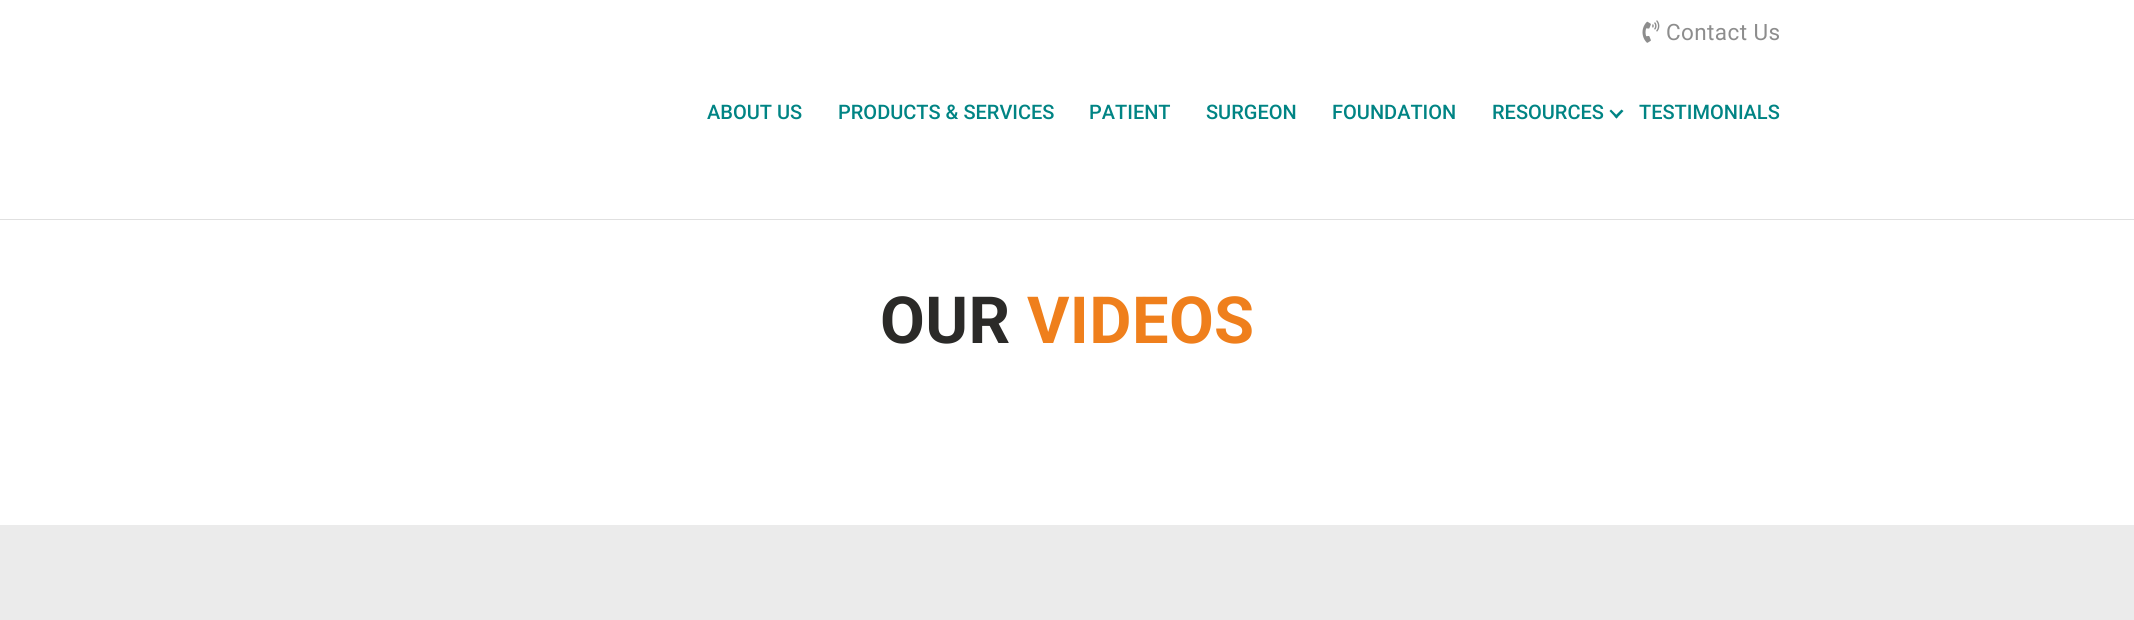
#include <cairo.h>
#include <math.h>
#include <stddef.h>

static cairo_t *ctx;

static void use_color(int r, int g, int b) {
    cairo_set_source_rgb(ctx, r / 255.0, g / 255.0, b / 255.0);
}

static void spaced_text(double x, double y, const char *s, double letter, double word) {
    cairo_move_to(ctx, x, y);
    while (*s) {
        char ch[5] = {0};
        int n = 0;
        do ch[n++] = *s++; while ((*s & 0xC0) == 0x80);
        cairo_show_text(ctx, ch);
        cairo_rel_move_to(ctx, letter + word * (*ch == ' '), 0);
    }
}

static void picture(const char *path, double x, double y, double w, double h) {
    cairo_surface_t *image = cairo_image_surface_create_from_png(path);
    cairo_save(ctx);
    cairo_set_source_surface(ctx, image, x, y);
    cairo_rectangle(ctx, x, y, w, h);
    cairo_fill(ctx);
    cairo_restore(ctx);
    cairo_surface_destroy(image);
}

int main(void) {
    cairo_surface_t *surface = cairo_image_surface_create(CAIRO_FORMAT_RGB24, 2134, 620);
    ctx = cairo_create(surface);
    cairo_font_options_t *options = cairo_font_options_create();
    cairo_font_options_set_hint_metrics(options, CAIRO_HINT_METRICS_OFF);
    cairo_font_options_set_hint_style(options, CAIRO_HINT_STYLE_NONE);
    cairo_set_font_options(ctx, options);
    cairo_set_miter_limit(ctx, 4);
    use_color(255, 255, 255);
    cairo_paint(ctx);
    use_color(224, 224, 224);
    cairo_rectangle(ctx, 0, 219, 2134, 1);
    cairo_fill(ctx);
    picture("img1.png", 1642, 20, 18, 23);
    cairo_select_font_face(ctx, "Roboto", CAIRO_FONT_SLANT_NORMAL, CAIRO_FONT_WEIGHT_NORMAL);
    cairo_set_font_size(ctx, 22.5);
    use_color(141, 141, 141);
    spaced_text(1666, 40, "Contact Us", 0.4, 0);
    cairo_select_font_face(ctx, "Roboto Medium", CAIRO_FONT_SLANT_NORMAL, CAIRO_FONT_WEIGHT_NORMAL);
    cairo_set_font_size(ctx, 20);
    use_color(0, 132, 132);
    cairo_move_to(ctx, 707, 119);
    cairo_show_text(ctx, "ABOUT US");
    cairo_move_to(ctx, 838, 119);
    cairo_show_text(ctx, "PRODUCTS & SERVICES");
    cairo_move_to(ctx, 1089, 119);
    cairo_show_text(ctx, "PATIENT");
    cairo_move_to(ctx, 1206, 119);
    cairo_show_text(ctx, "SURGEON");
    cairo_move_to(ctx, 1332, 119);
    cairo_show_text(ctx, "FOUNDATION");
    cairo_move_to(ctx, 1492, 119);
    cairo_show_text(ctx, "RESOURCES");
    cairo_new_path(ctx);
    cairo_move_to(ctx, 1621.5, 109.5);
    cairo_line_to(ctx, 1623.5, 111);
    cairo_line_to(ctx, 1616.5, 118.5);
    cairo_line_to(ctx, 1614.5, 116.5);
    cairo_close_path(ctx);
    cairo_fill(ctx);
    cairo_new_path(ctx);
    cairo_move_to(ctx, 1611, 109.5);
    cairo_line_to(ctx, 1618, 116.5);
    cairo_line_to(ctx, 1616.5, 118.5);
    cairo_line_to(ctx, 1609.5, 111);
    cairo_close_path(ctx);
    cairo_fill(ctx);
    cairo_move_to(ctx, 1639, 119);
    cairo_show_text(ctx, "TESTIMONIALS");
    cairo_select_font_face(ctx, "Roboto", CAIRO_FONT_SLANT_NORMAL, CAIRO_FONT_WEIGHT_BOLD);
    cairo_set_font_size(ctx, 65);
    use_color(43, 42, 40);
    spaced_text(880, 343, "OUR", 0.4, 0);
    use_color(239, 127, 28);
    spaced_text(1027, 343, "VIDEOS", 0.4, 0);
    use_color(235, 235, 235);
    cairo_rectangle(ctx, 0, 525, 2134, 95);
    cairo_fill(ctx);
    cairo_surface_write_to_png(surface, "result.png");
    cairo_font_options_destroy(options);
    cairo_destroy(ctx);
    cairo_surface_destroy(surface);
    return 0;
}
